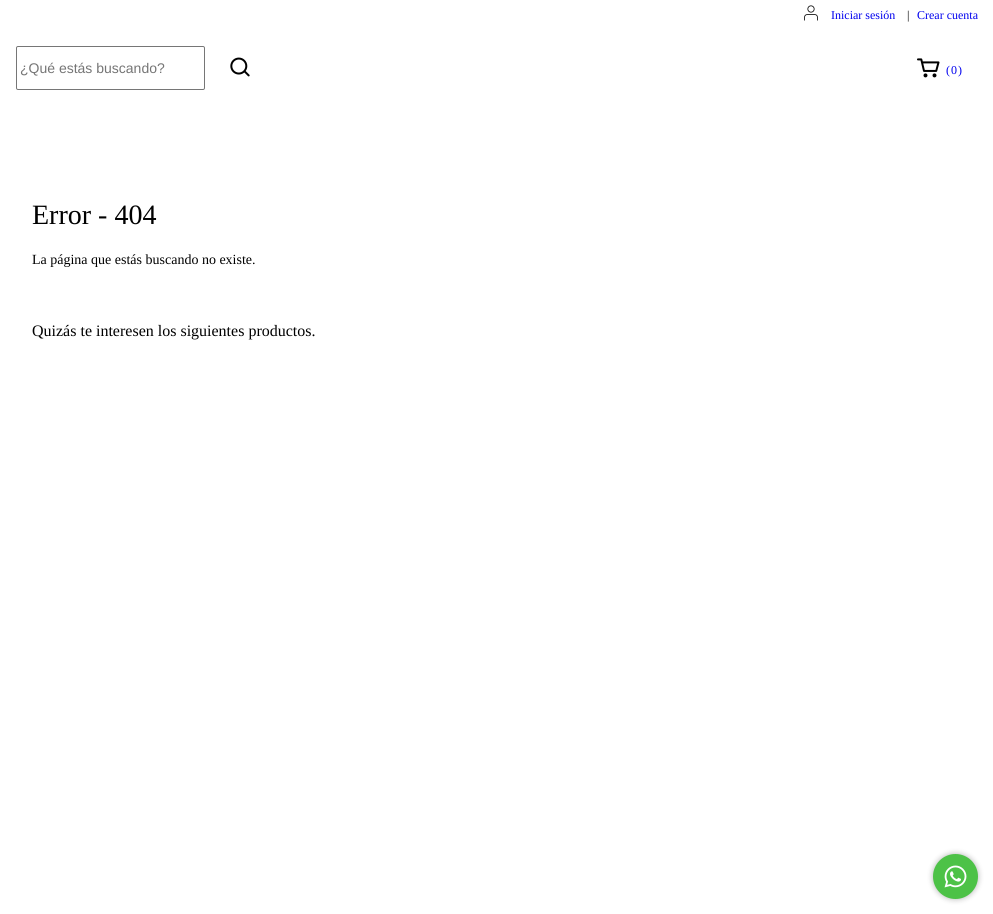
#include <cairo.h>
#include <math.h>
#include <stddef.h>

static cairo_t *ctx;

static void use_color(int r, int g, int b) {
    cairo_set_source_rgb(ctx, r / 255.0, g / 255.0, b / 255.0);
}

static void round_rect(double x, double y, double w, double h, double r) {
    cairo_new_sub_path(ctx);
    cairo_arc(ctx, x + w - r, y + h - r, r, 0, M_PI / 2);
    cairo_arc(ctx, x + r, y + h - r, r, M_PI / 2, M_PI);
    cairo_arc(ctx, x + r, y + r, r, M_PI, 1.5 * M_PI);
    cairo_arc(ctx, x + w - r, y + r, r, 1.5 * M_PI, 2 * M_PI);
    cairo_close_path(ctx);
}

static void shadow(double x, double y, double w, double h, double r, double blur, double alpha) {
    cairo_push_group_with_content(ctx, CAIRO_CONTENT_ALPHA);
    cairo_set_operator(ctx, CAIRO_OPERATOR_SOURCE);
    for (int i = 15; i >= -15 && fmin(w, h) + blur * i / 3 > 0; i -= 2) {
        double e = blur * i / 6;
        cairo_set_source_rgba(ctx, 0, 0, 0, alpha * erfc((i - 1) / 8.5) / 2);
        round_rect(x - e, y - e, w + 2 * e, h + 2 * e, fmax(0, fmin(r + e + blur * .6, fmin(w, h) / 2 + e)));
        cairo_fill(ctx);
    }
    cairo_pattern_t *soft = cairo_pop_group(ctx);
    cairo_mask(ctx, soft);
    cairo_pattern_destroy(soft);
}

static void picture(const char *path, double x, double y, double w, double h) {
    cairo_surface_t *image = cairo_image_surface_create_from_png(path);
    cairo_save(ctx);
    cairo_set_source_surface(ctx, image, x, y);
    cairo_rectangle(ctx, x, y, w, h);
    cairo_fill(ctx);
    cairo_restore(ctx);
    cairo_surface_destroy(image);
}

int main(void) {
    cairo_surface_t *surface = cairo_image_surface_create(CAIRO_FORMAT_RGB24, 993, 914);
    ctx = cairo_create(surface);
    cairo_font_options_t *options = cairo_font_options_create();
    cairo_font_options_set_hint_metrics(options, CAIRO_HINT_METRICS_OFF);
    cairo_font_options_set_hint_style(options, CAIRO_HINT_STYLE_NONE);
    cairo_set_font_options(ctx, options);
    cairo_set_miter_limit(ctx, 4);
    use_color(255, 255, 255);
    cairo_paint(ctx);
    picture("img1.png", 804, 5, 14, 16);
    cairo_select_font_face(ctx, "Liberation Serif", CAIRO_FONT_SLANT_NORMAL, CAIRO_FONT_WEIGHT_NORMAL);
    cairo_set_font_size(ctx, 12);
    use_color(0, 0, 238);
    cairo_move_to(ctx, 831, 19);
    cairo_show_text(ctx, "Iniciar sesión");
    use_color(0, 0, 0);
    cairo_move_to(ctx, 907, 19);
    cairo_show_text(ctx, "|");
    use_color(0, 0, 238);
    cairo_move_to(ctx, 917, 19);
    cairo_show_text(ctx, "Crear cuenta");
    round_rect(16.5, 46.5, 188, 43, 1.5);
    use_color(118, 118, 118);
    cairo_set_line_width(ctx, 1);
    cairo_stroke(ctx);
    cairo_select_font_face(ctx, "Liberation Sans", CAIRO_FONT_SLANT_NORMAL, CAIRO_FONT_WEIGHT_NORMAL);
    cairo_set_font_size(ctx, 14);
    use_color(117, 117, 117);
    cairo_move_to(ctx, 20, 73);
    cairo_show_text(ctx, "¿Qué estás buscando?");
    picture("img2.png", 230, 57, 20, 20);
    picture("img3.png", 917, 58, 23, 20);
    cairo_select_font_face(ctx, "Liberation Serif", CAIRO_FONT_SLANT_NORMAL, CAIRO_FONT_WEIGHT_NORMAL);
    cairo_set_font_size(ctx, 12);
    use_color(0, 0, 238);
    cairo_move_to(ctx, 946, 74);
    cairo_show_text(ctx, "(");
    cairo_move_to(ctx, 951, 74);
    cairo_show_text(ctx, "0");
    cairo_move_to(ctx, 958, 74);
    cairo_show_text(ctx, ")");
    cairo_set_font_size(ctx, 28);
    use_color(0, 0, 0);
    cairo_move_to(ctx, 32, 224);
    cairo_show_text(ctx, "Error - 404");
    cairo_set_font_size(ctx, 14);
    cairo_move_to(ctx, 32, 264);
    cairo_show_text(ctx, "La página que estás buscando no existe.");
    cairo_set_font_size(ctx, 16);
    cairo_move_to(ctx, 32, 336);
    cairo_show_text(ctx, "Quizás te interesen los siguientes productos.");
    use_color(0, 0, 0);
    shadow(933, 854, 45, 45, 22.5, 3, 0.3);
    use_color(77, 194, 71);
    cairo_arc(ctx, 955.5, 876.5, 22.5, 0, 2 * M_PI);
    cairo_fill(ctx);
    picture("img4.png", 944, 865, 23, 23);
    cairo_surface_write_to_png(surface, "result.png");
    cairo_font_options_destroy(options);
    cairo_destroy(ctx);
    cairo_surface_destroy(surface);
    return 0;
}
